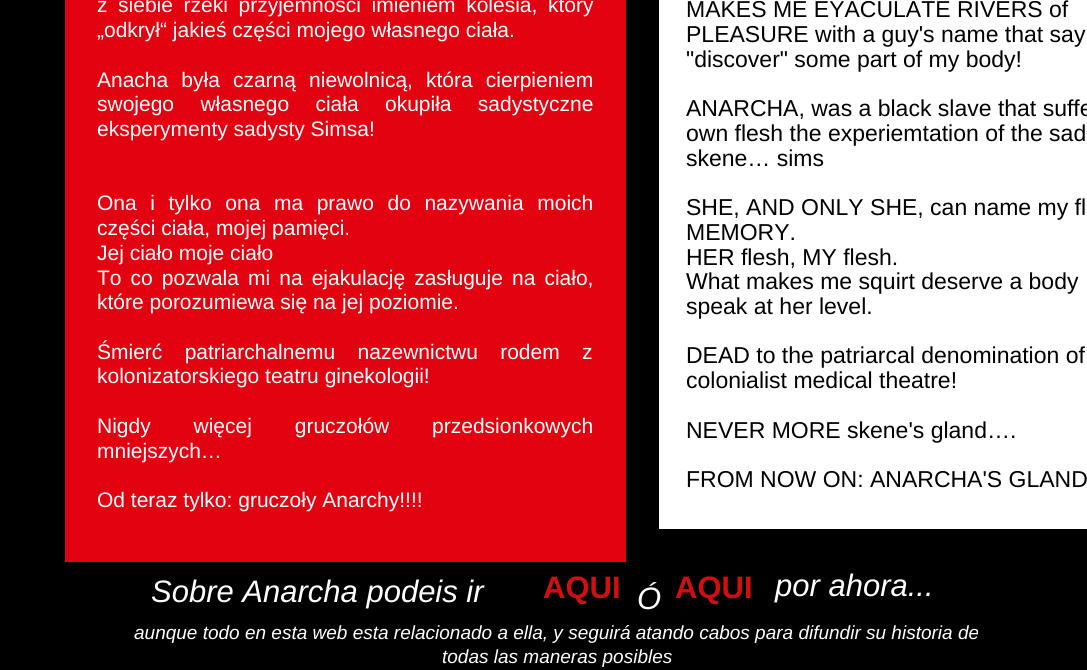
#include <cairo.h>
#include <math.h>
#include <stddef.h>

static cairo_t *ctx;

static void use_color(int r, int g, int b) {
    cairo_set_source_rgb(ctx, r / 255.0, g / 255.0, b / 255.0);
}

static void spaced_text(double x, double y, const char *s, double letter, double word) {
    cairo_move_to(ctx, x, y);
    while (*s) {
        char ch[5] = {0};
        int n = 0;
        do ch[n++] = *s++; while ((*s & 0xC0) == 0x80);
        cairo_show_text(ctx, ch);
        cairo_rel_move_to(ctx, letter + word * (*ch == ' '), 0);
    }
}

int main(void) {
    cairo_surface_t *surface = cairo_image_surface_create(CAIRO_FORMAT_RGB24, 1087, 670);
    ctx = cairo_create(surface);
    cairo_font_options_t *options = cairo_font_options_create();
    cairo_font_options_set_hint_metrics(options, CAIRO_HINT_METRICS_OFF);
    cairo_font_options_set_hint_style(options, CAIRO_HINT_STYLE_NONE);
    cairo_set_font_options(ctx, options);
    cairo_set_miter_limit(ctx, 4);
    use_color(0, 0, 0);
    cairo_paint(ctx);
    use_color(227, 2, 15);
    cairo_rectangle(ctx, 65, 0, 561, 562);
    cairo_fill(ctx);
    cairo_select_font_face(ctx, "Liberation Sans", CAIRO_FONT_SLANT_NORMAL, CAIRO_FONT_WEIGHT_NORMAL);
    cairo_set_font_size(ctx, 21);
    use_color(255, 255, 255);
    spaced_text(97, 12, "z siebie rzeki przyjemności imieniem kolesia, który", 0, 4.75);
    cairo_move_to(ctx, 97, 37);
    cairo_show_text(ctx, "„odkrył“ jakieś części mojego własnego ciała.");
    spaced_text(97, 87, "Anacha była czarną niewolnicą, która cierpieniem", 0, 7.25);
    spaced_text(97, 111, "swojego własnego ciała okupiła sadystyczne", 0, 20.5);
    cairo_move_to(ctx, 97, 136);
    cairo_show_text(ctx, "eksperymenty sadysty Simsa!");
    spaced_text(97, 210, "Ona i tylko ona ma prawo do nazywania moich", 0, 7.75);
    cairo_move_to(ctx, 97, 235);
    cairo_show_text(ctx, "części ciała, mojej pamięci.");
    cairo_move_to(ctx, 97, 260);
    cairo_show_text(ctx, "Jej ciało moje ciało");
    spaced_text(97, 285, "To co pozwala mi na ejakulację zasługuje na ciało,", 0, 3.25);
    cairo_move_to(ctx, 97, 309);
    cairo_show_text(ctx, "które porozumiewa się na jej poziomie.");
    spaced_text(97, 359, "Śmierć patriarchalnemu nazewnictwu rodem z", 0, 16.5);
    cairo_move_to(ctx, 97, 383);
    cairo_show_text(ctx, "kolonizatorskiego teatru ginekologii!");
    spaced_text(97, 433, "Nigdy więcej gruczołów przedsionkowych", 0, 37);
    cairo_move_to(ctx, 97, 458);
    cairo_show_text(ctx, "mniejszych…");
    cairo_move_to(ctx, 97, 507);
    cairo_show_text(ctx, "Od teraz tylko: gruczoły Anarchy!!!!");
    cairo_rectangle(ctx, 659, 0, 428, 529);
    cairo_fill(ctx);
    cairo_set_font_size(ctx, 23);
    use_color(0, 0, 0);
    cairo_move_to(ctx, 686, 17);
    cairo_show_text(ctx, "MAKES ME EYACULATE RIVERS of");
    cairo_move_to(ctx, 686, 42);
    cairo_show_text(ctx, "PLEASURE with a guy's name that say");
    cairo_move_to(ctx, 686, 67);
    cairo_show_text(ctx, "\"discover\" some part of my body!");
    cairo_move_to(ctx, 686, 116);
    cairo_show_text(ctx, "ANARCHA, was a black slave that suffe");
    cairo_move_to(ctx, 686, 141);
    cairo_show_text(ctx, "own flesh the experiemtation of the sad");
    cairo_move_to(ctx, 686, 166);
    cairo_show_text(ctx, "skene… sims");
    cairo_move_to(ctx, 686, 215);
    cairo_show_text(ctx, "SHE, AND ONLY SHE, can name my fl");
    cairo_move_to(ctx, 686, 240);
    cairo_show_text(ctx, "MEMORY.");
    cairo_move_to(ctx, 686, 265);
    cairo_show_text(ctx, "HER flesh, MY flesh.");
    cairo_move_to(ctx, 686, 289);
    cairo_show_text(ctx, "What makes me squirt deserve a body");
    cairo_move_to(ctx, 686, 314);
    cairo_show_text(ctx, "speak at her level.");
    cairo_move_to(ctx, 686, 363);
    cairo_show_text(ctx, "DEAD to the patriarcal denomination of");
    cairo_move_to(ctx, 686, 388);
    cairo_show_text(ctx, "colonialist medical theatre!");
    cairo_move_to(ctx, 686, 438);
    cairo_show_text(ctx, "NEVER MORE skene's gland….");
    cairo_move_to(ctx, 686, 487);
    cairo_show_text(ctx, "FROM NOW ON: ANARCHA'S GLAND");
    cairo_select_font_face(ctx, "Liberation Sans", CAIRO_FONT_SLANT_ITALIC, CAIRO_FONT_WEIGHT_NORMAL);
    cairo_set_font_size(ctx, 31);
    use_color(255, 255, 255);
    cairo_move_to(ctx, 151, 602);
    cairo_show_text(ctx, "Sobre Anarcha podeis ir");
    cairo_select_font_face(ctx, "Liberation Sans", CAIRO_FONT_SLANT_NORMAL, CAIRO_FONT_WEIGHT_BOLD);
    use_color(208, 16, 16);
    cairo_move_to(ctx, 543, 598);
    cairo_show_text(ctx, "AQUI");
    cairo_select_font_face(ctx, "Liberation Sans", CAIRO_FONT_SLANT_ITALIC, CAIRO_FONT_WEIGHT_NORMAL);
    use_color(255, 255, 255);
    cairo_move_to(ctx, 637, 609);
    cairo_show_text(ctx, "Ó");
    cairo_select_font_face(ctx, "Liberation Sans", CAIRO_FONT_SLANT_NORMAL, CAIRO_FONT_WEIGHT_BOLD);
    use_color(208, 16, 16);
    cairo_move_to(ctx, 675, 598);
    cairo_show_text(ctx, "AQUI");
    cairo_select_font_face(ctx, "Liberation Sans", CAIRO_FONT_SLANT_ITALIC, CAIRO_FONT_WEIGHT_NORMAL);
    use_color(255, 255, 255);
    cairo_move_to(ctx, 775, 596);
    cairo_show_text(ctx, "por ahora...");
    cairo_set_font_size(ctx, 19);
    cairo_move_to(ctx, 134, 639);
    cairo_show_text(ctx, "aunque todo en esta web esta relacionado a ella, y seguirá atando cabos para difundir su historia de");
    cairo_move_to(ctx, 442, 663);
    cairo_show_text(ctx, "todas las maneras posibles");
    cairo_surface_write_to_png(surface, "result.png");
    cairo_font_options_destroy(options);
    cairo_destroy(ctx);
    cairo_surface_destroy(surface);
    return 0;
}
